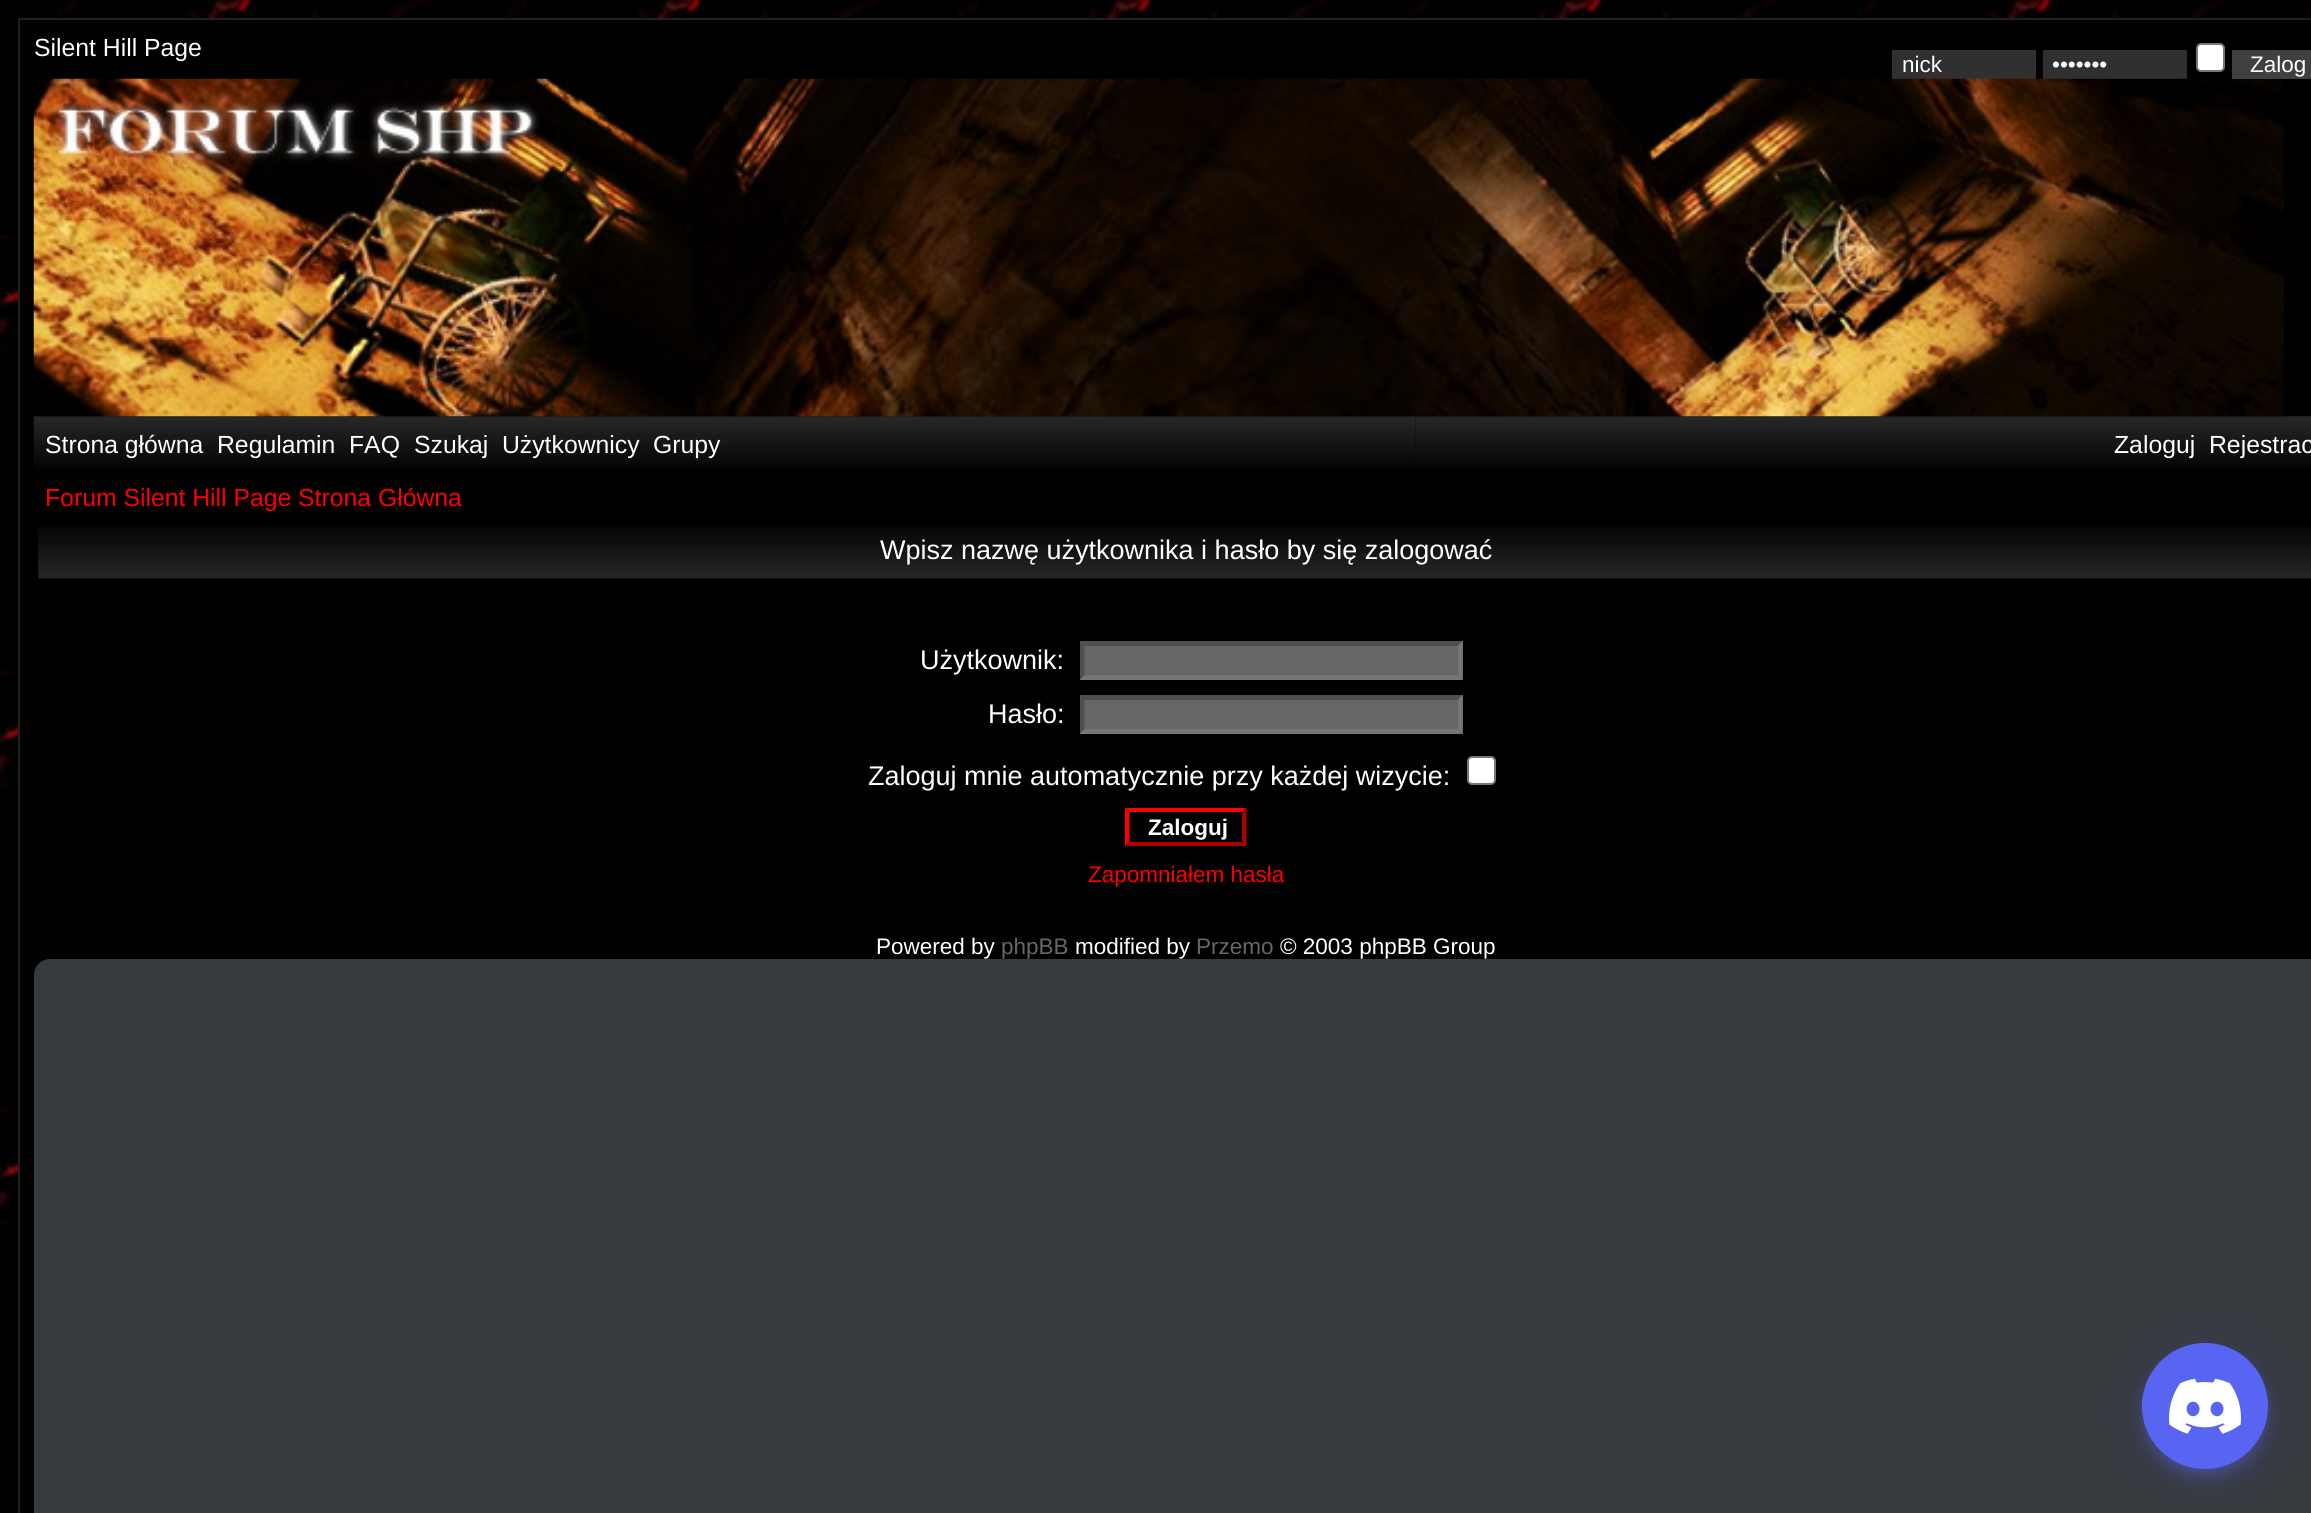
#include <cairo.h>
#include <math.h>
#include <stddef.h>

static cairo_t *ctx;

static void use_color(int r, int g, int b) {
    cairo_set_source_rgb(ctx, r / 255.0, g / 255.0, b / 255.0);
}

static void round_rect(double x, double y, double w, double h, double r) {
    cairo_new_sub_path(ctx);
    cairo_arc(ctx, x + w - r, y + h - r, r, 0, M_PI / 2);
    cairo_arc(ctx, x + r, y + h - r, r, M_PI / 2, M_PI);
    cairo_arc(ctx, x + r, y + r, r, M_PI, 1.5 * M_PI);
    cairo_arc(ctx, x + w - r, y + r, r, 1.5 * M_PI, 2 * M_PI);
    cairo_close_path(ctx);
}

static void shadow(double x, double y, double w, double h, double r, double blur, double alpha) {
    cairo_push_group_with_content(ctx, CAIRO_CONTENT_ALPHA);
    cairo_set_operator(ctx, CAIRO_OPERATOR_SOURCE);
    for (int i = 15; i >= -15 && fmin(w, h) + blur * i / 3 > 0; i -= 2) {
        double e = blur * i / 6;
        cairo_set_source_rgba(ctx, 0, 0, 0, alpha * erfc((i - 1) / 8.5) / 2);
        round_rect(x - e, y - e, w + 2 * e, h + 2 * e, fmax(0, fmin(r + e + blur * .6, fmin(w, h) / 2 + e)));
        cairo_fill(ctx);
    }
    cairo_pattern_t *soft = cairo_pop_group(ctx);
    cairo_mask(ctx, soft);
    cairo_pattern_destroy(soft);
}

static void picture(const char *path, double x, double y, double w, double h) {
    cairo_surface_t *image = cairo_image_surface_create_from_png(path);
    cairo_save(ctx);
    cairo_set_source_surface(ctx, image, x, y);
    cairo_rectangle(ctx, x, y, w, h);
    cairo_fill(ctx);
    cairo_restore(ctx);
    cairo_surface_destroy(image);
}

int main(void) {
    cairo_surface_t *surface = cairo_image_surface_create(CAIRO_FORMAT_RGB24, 2311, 1513);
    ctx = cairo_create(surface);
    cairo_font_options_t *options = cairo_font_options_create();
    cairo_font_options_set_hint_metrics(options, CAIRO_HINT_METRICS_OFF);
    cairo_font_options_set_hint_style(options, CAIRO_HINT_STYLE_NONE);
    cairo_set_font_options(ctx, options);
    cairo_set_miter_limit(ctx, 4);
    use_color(255, 255, 255);
    cairo_paint(ctx);
    picture("img1.png", 0, 0, 2311, 1513);
    use_color(0, 0, 0);
    cairo_rectangle(ctx, 19, 19, 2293, 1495);
    cairo_fill_preserve(ctx);
    use_color(32, 32, 32);
    cairo_stroke(ctx);
    cairo_select_font_face(ctx, "Liberation Sans", CAIRO_FONT_SLANT_NORMAL, CAIRO_FONT_WEIGHT_NORMAL);
    cairo_set_font_size(ctx, 24.75);
    use_color(255, 255, 255);
    cairo_move_to(ctx, 34, 56);
    cairo_show_text(ctx, "Silent Hill Page");
    use_color(48, 48, 48);
    cairo_rectangle(ctx, 1892, 50, 144, 29);
    cairo_fill(ctx);
    cairo_set_font_size(ctx, 22.5);
    use_color(255, 255, 255);
    cairo_move_to(ctx, 1902, 72);
    cairo_show_text(ctx, "nick");
    use_color(48, 48, 48);
    cairo_rectangle(ctx, 2043, 50, 144, 29);
    cairo_fill(ctx);
    use_color(255, 255, 255);
    cairo_move_to(ctx, 2052, 72);
    cairo_show_text(ctx, "•••••••");
    round_rect(2197, 44, 27, 27, 4);
    cairo_fill_preserve(ctx);
    use_color(118, 118, 118);
    cairo_stroke(ctx);
    picture("img3.png", 33, 416, 1382, 52);
    picture("img4.png", 1415, 416, 896, 52);
    picture("img2.png", 33, 78, 2251, 339);
    use_color(64, 64, 64);
    cairo_rectangle(ctx, 2232, 50, 79, 29);
    cairo_fill(ctx);
    use_color(255, 255, 255);
    cairo_move_to(ctx, 2250, 72);
    cairo_show_text(ctx, "Zalog");
    cairo_set_font_size(ctx, 24.75);
    cairo_move_to(ctx, 45, 453);
    cairo_show_text(ctx, "Strona główna");
    cairo_move_to(ctx, 217, 453);
    cairo_show_text(ctx, "Regulamin");
    cairo_move_to(ctx, 349, 453);
    cairo_show_text(ctx, "FAQ");
    cairo_move_to(ctx, 414, 453);
    cairo_show_text(ctx, "Szukaj");
    cairo_move_to(ctx, 502, 453);
    cairo_show_text(ctx, "Użytkownicy");
    cairo_move_to(ctx, 653, 453);
    cairo_show_text(ctx, "Grupy");
    cairo_move_to(ctx, 2114, 453);
    cairo_show_text(ctx, "Zaloguj");
    cairo_move_to(ctx, 2209, 453);
    cairo_show_text(ctx, "Rejestrac");
    use_color(255, 0, 0);
    cairo_move_to(ctx, 45, 506);
    cairo_show_text(ctx, "Forum Silent Hill Page Strona Główna");
    picture("img5.png", 38, 526, 2273, 53);
    cairo_set_font_size(ctx, 27);
    use_color(255, 255, 255);
    cairo_move_to(ctx, 880, 559);
    cairo_show_text(ctx, "Wpisz nazwę użytkownika i hasło by się zalogować");
    cairo_move_to(ctx, 920, 669);
    cairo_show_text(ctx, "Użytkownik:");
    use_color(102, 102, 102);
    cairo_rectangle(ctx, 1080, 641, 383, 39);
    cairo_fill(ctx);
    use_color(79, 79, 79);
    cairo_new_path(ctx);
    cairo_move_to(ctx, 1080, 641);
    cairo_line_to(ctx, 1462, 641);
    cairo_line_to(ctx, 1458, 646);
    cairo_line_to(ctx, 1084, 646);
    cairo_close_path(ctx);
    cairo_fill(ctx);
    use_color(118, 118, 118);
    cairo_new_path(ctx);
    cairo_move_to(ctx, 1462.5, 641);
    cairo_line_to(ctx, 1462.5, 679.5);
    cairo_line_to(ctx, 1458, 675);
    cairo_line_to(ctx, 1458, 646);
    cairo_close_path(ctx);
    cairo_fill(ctx);
    cairo_new_path(ctx);
    cairo_move_to(ctx, 1462, 680);
    cairo_line_to(ctx, 1080, 680);
    cairo_line_to(ctx, 1084, 675);
    cairo_line_to(ctx, 1458, 675);
    cairo_close_path(ctx);
    cairo_fill(ctx);
    use_color(79, 79, 79);
    cairo_new_path(ctx);
    cairo_move_to(ctx, 1080, 679.5);
    cairo_line_to(ctx, 1080, 641);
    cairo_line_to(ctx, 1084.5, 646);
    cairo_line_to(ctx, 1084.5, 675);
    cairo_close_path(ctx);
    cairo_fill(ctx);
    use_color(255, 255, 255);
    cairo_move_to(ctx, 988, 723);
    cairo_show_text(ctx, "Hasło:");
    use_color(102, 102, 102);
    cairo_rectangle(ctx, 1080, 695, 383, 39);
    cairo_fill(ctx);
    use_color(79, 79, 79);
    cairo_new_path(ctx);
    cairo_move_to(ctx, 1080, 695);
    cairo_line_to(ctx, 1462, 695);
    cairo_line_to(ctx, 1458, 700);
    cairo_line_to(ctx, 1084, 700);
    cairo_close_path(ctx);
    cairo_fill(ctx);
    use_color(118, 118, 118);
    cairo_new_path(ctx);
    cairo_move_to(ctx, 1462.5, 695);
    cairo_line_to(ctx, 1462.5, 733.5);
    cairo_line_to(ctx, 1458, 729);
    cairo_line_to(ctx, 1458, 700);
    cairo_close_path(ctx);
    cairo_fill(ctx);
    cairo_new_path(ctx);
    cairo_move_to(ctx, 1462, 734);
    cairo_line_to(ctx, 1080, 734);
    cairo_line_to(ctx, 1084, 729);
    cairo_line_to(ctx, 1458, 729);
    cairo_close_path(ctx);
    cairo_fill(ctx);
    use_color(79, 79, 79);
    cairo_new_path(ctx);
    cairo_move_to(ctx, 1080, 733.5);
    cairo_line_to(ctx, 1080, 695);
    cairo_line_to(ctx, 1084.5, 700);
    cairo_line_to(ctx, 1084.5, 729);
    cairo_close_path(ctx);
    cairo_fill(ctx);
    use_color(255, 255, 255);
    cairo_move_to(ctx, 868, 785);
    cairo_show_text(ctx, "Zaloguj mnie automatycznie przy każdej wizycie:");
    round_rect(1468, 757, 27, 27, 4);
    cairo_fill_preserve(ctx);
    use_color(118, 118, 118);
    cairo_stroke(ctx);
    use_color(255, 0, 0);
    cairo_new_path(ctx);
    cairo_move_to(ctx, 1125, 808);
    cairo_line_to(ctx, 1246, 808);
    cairo_line_to(ctx, 1242, 812);
    cairo_line_to(ctx, 1130, 812);
    cairo_close_path(ctx);
    cairo_fill(ctx);
    use_color(170, 0, 0);
    cairo_new_path(ctx);
    cairo_move_to(ctx, 1246.5, 808);
    cairo_line_to(ctx, 1246.5, 846);
    cairo_line_to(ctx, 1242, 841.5);
    cairo_line_to(ctx, 1242, 812);
    cairo_close_path(ctx);
    cairo_fill(ctx);
    cairo_new_path(ctx);
    cairo_move_to(ctx, 1246, 846);
    cairo_line_to(ctx, 1125, 846);
    cairo_line_to(ctx, 1130, 842);
    cairo_line_to(ctx, 1242, 842);
    cairo_close_path(ctx);
    cairo_fill(ctx);
    use_color(255, 0, 0);
    cairo_new_path(ctx);
    cairo_move_to(ctx, 1125, 846);
    cairo_line_to(ctx, 1125, 808);
    cairo_line_to(ctx, 1129.5, 812);
    cairo_line_to(ctx, 1129.5, 841.5);
    cairo_close_path(ctx);
    cairo_fill(ctx);
    cairo_select_font_face(ctx, "Liberation Sans", CAIRO_FONT_SLANT_NORMAL, CAIRO_FONT_WEIGHT_BOLD);
    cairo_set_font_size(ctx, 22.5);
    use_color(255, 255, 255);
    cairo_move_to(ctx, 1148, 835);
    cairo_show_text(ctx, "Zaloguj");
    cairo_select_font_face(ctx, "Liberation Sans", CAIRO_FONT_SLANT_NORMAL, CAIRO_FONT_WEIGHT_NORMAL);
    use_color(255, 0, 0);
    cairo_move_to(ctx, 1088, 882);
    cairo_show_text(ctx, "Zapomniałem hasła");
    use_color(255, 255, 255);
    cairo_move_to(ctx, 876, 954);
    cairo_show_text(ctx, "Powered by");
    use_color(102, 102, 102);
    cairo_move_to(ctx, 1001, 954);
    cairo_show_text(ctx, "phpBB");
    use_color(255, 255, 255);
    cairo_move_to(ctx, 1075, 954);
    cairo_show_text(ctx, "modified by");
    use_color(102, 102, 102);
    cairo_move_to(ctx, 1196, 954);
    cairo_show_text(ctx, "Przemo");
    use_color(255, 255, 255);
    cairo_move_to(ctx, 1280, 954);
    cairo_show_text(ctx, "© 2003 phpBB Group");
    use_color(54, 57, 62);
    round_rect(34, 959, 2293, 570, 16);
    cairo_fill(ctx);
    use_color(88, 101, 242);
    shadow(2142, 1346, 126, 126, 63, 20, 0.12);
    shadow(2142, 1357, 126, 126, 63, 11, 0.14);
    shadow(2144, 1352, 122, 122, 61, 5.5, 0.3);
    use_color(88, 101, 242);
    cairo_arc(ctx, 2205, 1406, 63, 0, 2 * M_PI);
    cairo_fill(ctx);
    picture("img6.png", 2169, 1378, 72, 56);
    cairo_surface_write_to_png(surface, "result.png");
    cairo_font_options_destroy(options);
    cairo_destroy(ctx);
    cairo_surface_destroy(surface);
    return 0;
}
